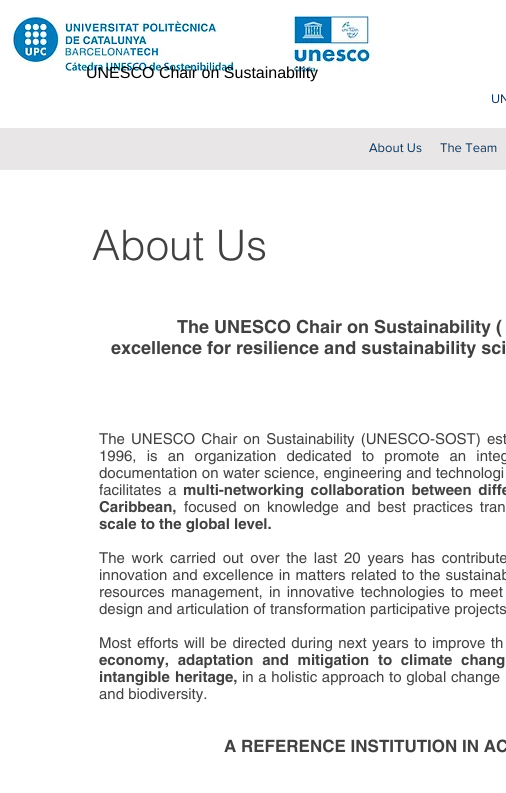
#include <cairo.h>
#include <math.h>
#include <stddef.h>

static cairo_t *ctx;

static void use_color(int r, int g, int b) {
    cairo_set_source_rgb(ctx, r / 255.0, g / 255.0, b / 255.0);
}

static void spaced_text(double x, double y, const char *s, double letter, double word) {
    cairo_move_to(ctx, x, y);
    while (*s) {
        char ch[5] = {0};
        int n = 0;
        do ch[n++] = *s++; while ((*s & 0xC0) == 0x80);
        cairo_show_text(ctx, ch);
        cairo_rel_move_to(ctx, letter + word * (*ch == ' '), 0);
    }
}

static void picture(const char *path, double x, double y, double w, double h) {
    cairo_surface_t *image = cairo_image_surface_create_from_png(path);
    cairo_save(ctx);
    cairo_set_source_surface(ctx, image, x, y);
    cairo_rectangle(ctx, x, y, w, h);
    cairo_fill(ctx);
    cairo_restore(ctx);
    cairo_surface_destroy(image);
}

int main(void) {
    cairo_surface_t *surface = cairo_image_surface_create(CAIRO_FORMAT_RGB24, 506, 793);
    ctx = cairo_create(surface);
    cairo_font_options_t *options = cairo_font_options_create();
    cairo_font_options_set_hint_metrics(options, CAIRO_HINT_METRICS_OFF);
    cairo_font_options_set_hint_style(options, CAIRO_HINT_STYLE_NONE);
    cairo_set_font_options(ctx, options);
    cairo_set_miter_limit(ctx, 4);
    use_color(255, 255, 255);
    cairo_paint(ctx);
    picture("img1.png", 10, 15, 364, 58);
    cairo_select_font_face(ctx, "Liberation Sans", CAIRO_FONT_SLANT_NORMAL, CAIRO_FONT_WEIGHT_NORMAL);
    cairo_set_font_size(ctx, 16);
    use_color(0, 0, 0);
    cairo_move_to(ctx, 86, 78);
    cairo_show_text(ctx, "UNESCO Chair on Sustainability");
    cairo_select_font_face(ctx, "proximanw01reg", CAIRO_FONT_SLANT_NORMAL, CAIRO_FONT_WEIGHT_NORMAL);
    cairo_set_font_size(ctx, 13);
    use_color(10, 54, 97);
    cairo_move_to(ctx, 491, 103);
    cairo_show_text(ctx, "UN");
    use_color(232, 230, 230);
    cairo_rectangle(ctx, 0, 128, 506, 42);
    cairo_fill(ctx);
    use_color(10, 54, 97);
    cairo_move_to(ctx, 369, 152);
    cairo_show_text(ctx, "About Us");
    cairo_move_to(ctx, 440, 152);
    cairo_show_text(ctx, "The Team");
    cairo_select_font_face(ctx, "helvetica Light", CAIRO_FONT_SLANT_NORMAL, CAIRO_FONT_WEIGHT_NORMAL);
    cairo_set_font_size(ctx, 42);
    use_color(65, 65, 65);
    cairo_move_to(ctx, 92, 260);
    cairo_show_text(ctx, "About Us");
    cairo_select_font_face(ctx, "helvetica", CAIRO_FONT_SLANT_NORMAL, CAIRO_FONT_WEIGHT_BOLD);
    cairo_set_font_size(ctx, 18);
    cairo_move_to(ctx, 177, 333);
    cairo_show_text(ctx, "The UNESCO Chair on Sustainability (");
    cairo_move_to(ctx, 111, 354);
    cairo_show_text(ctx, "excellence for resilience and sustainability sci");
    cairo_select_font_face(ctx, "helvetica", CAIRO_FONT_SLANT_NORMAL, CAIRO_FONT_WEIGHT_NORMAL);
    cairo_set_font_size(ctx, 15);
    spaced_text(99, 444, "The UNESCO Chair on Sustainability (UNESCO-SOST) est", 0, 2);
    spaced_text(99, 461, "1996, is an organization dedicated to promote an integ", 0, 6);
    spaced_text(99, 478, "documentation on water science, engineering and technologi", 0, 0.25);
    spaced_text(99, 495, "facilitates a", 0, 2.6);
    cairo_select_font_face(ctx, "helvetica", CAIRO_FONT_SLANT_NORMAL, CAIRO_FONT_WEIGHT_BOLD);
    spaced_text(183, 495, "multi-networking collaboration between diffe", 0, 2.6);
    cairo_move_to(ctx, 99, 512);
    cairo_show_text(ctx, "Caribbean,");
    cairo_select_font_face(ctx, "helvetica", CAIRO_FONT_SLANT_NORMAL, CAIRO_FONT_WEIGHT_NORMAL);
    spaced_text(184, 512, "focused on knowledge and best practices tran", 0, 2.75);
    cairo_select_font_face(ctx, "helvetica", CAIRO_FONT_SLANT_NORMAL, CAIRO_FONT_WEIGHT_BOLD);
    cairo_move_to(ctx, 99, 529);
    cairo_show_text(ctx, "scale to the global level.");
    cairo_select_font_face(ctx, "helvetica", CAIRO_FONT_SLANT_NORMAL, CAIRO_FONT_WEIGHT_NORMAL);
    spaced_text(99, 563, "The work carried out over the last 20 years has contribute", 0, 2.6);
    spaced_text(99, 580, "innovation and excellence in matters related to the sustainab", 0, 1);
    spaced_text(99, 597, "resources management, in innovative technologies to meet", 0, 2);
    cairo_move_to(ctx, 99, 614);
    cairo_show_text(ctx, "design and articulation of transformation participative projects");
    spaced_text(99, 648, "Most efforts will be directed during next years to improve th", 0, 1.25);
    cairo_select_font_face(ctx, "helvetica", CAIRO_FONT_SLANT_NORMAL, CAIRO_FONT_WEIGHT_BOLD);
    spaced_text(99, 665, "economy, adaptation and mitigation to climate chang", 0, 4.5);
    spaced_text(99, 682, "intangible heritage,", 0, 1);
    cairo_select_font_face(ctx, "helvetica", CAIRO_FONT_SLANT_NORMAL, CAIRO_FONT_WEIGHT_NORMAL);
    spaced_text(242, 682, "in a holistic approach to global change", 0, 0.5);
    cairo_move_to(ctx, 99, 699);
    cairo_show_text(ctx, "and biodiversity.");
    cairo_select_font_face(ctx, "helvetica", CAIRO_FONT_SLANT_NORMAL, CAIRO_FONT_WEIGHT_BOLD);
    cairo_set_font_size(ctx, 17);
    cairo_move_to(ctx, 224, 752);
    cairo_show_text(ctx, "A REFERENCE INSTITUTION IN AC");
    cairo_surface_write_to_png(surface, "result.png");
    cairo_font_options_destroy(options);
    cairo_destroy(ctx);
    cairo_surface_destroy(surface);
    return 0;
}
